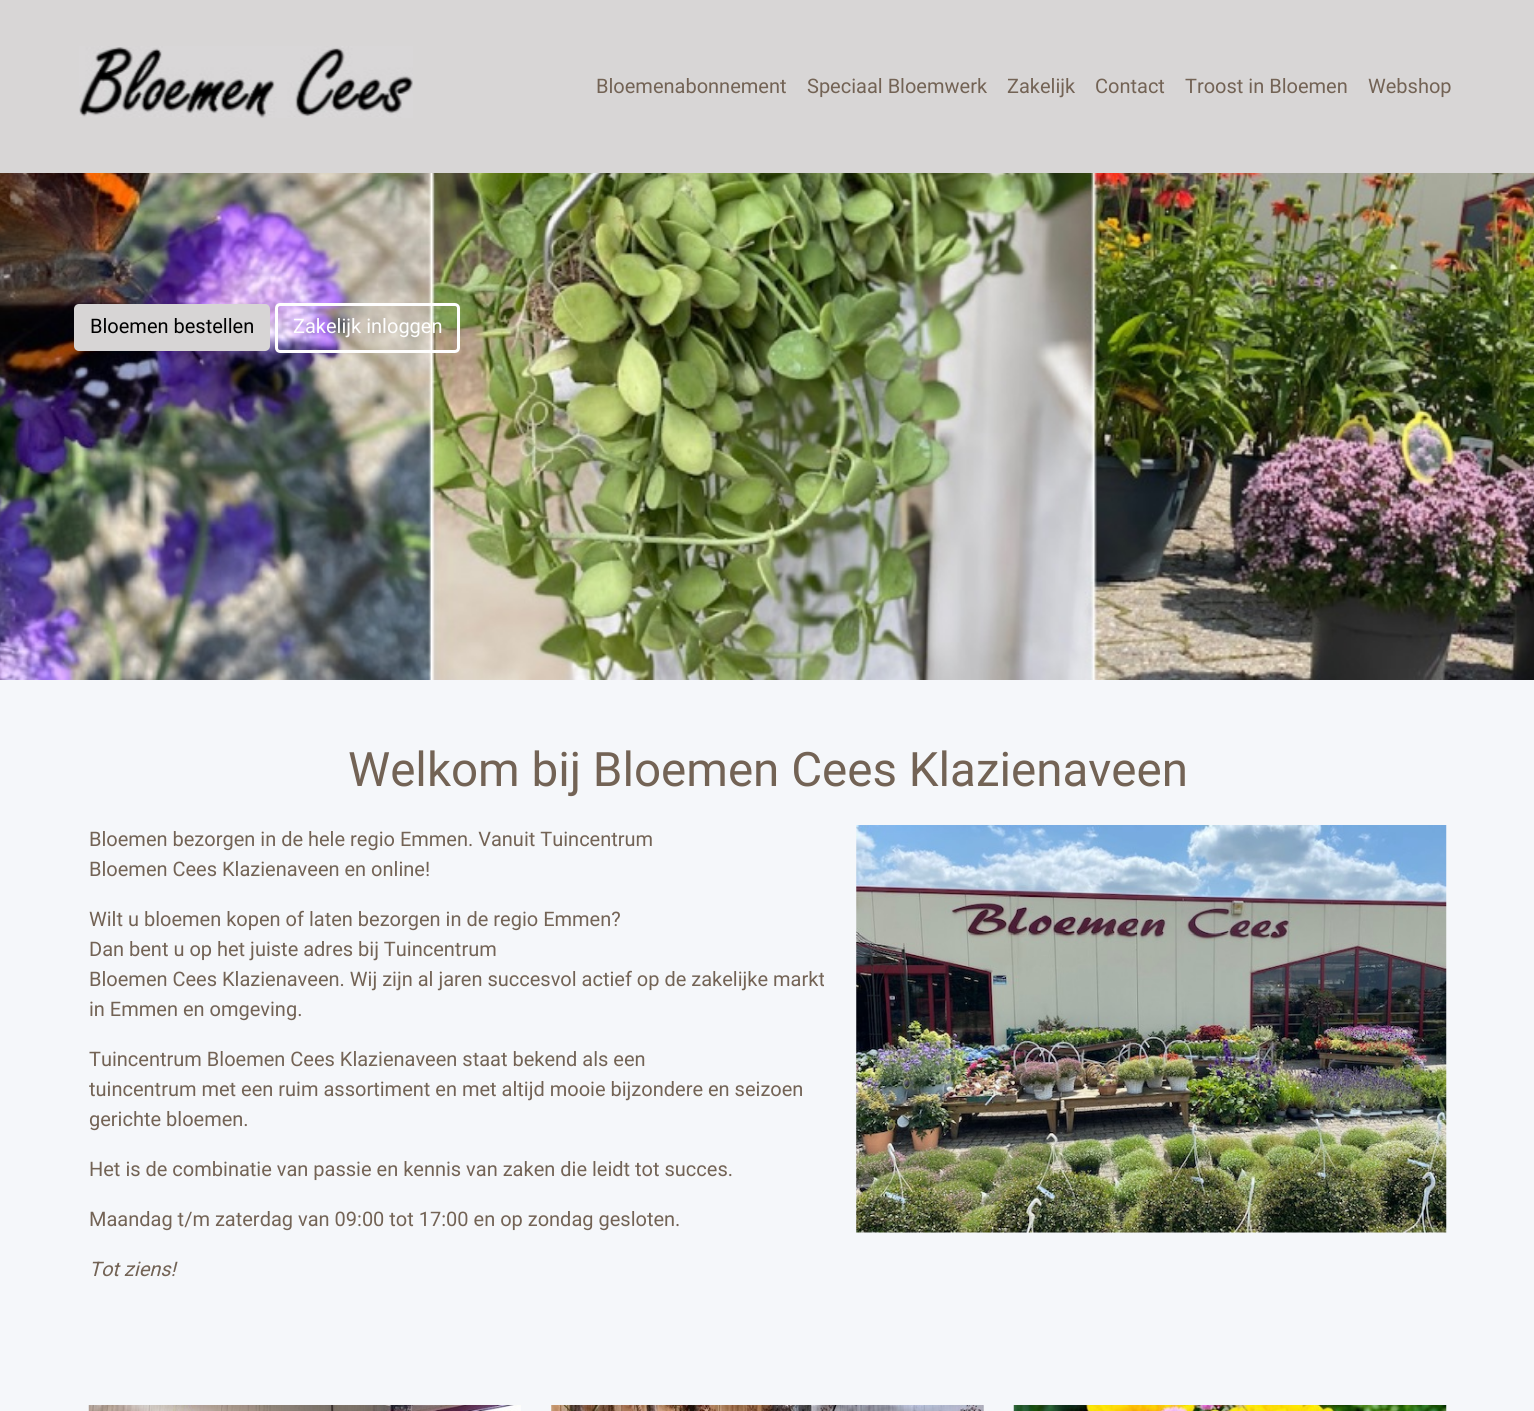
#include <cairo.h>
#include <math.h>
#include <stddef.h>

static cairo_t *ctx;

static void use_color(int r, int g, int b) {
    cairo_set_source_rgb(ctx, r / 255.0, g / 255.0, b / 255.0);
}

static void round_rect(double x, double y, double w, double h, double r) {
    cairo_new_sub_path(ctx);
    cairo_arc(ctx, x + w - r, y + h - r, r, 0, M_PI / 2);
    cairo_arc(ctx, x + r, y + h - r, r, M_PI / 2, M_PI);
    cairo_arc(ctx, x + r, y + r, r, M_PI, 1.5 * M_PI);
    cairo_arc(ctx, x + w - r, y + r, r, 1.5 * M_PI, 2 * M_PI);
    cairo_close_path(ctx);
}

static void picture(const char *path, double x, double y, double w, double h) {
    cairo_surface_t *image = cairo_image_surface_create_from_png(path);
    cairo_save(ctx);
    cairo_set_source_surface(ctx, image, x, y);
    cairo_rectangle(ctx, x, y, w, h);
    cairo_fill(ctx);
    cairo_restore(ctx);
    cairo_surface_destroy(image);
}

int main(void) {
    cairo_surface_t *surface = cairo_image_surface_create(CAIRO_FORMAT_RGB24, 1534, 1411);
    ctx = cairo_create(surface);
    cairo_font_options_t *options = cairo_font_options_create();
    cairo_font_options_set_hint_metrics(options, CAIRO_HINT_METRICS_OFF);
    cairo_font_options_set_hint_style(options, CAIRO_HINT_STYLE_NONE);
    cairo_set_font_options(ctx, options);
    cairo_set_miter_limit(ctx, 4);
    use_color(245, 247, 250);
    cairo_paint(ctx);
    use_color(216, 214, 214);
    cairo_rectangle(ctx, 0, 0, 1534, 173);
    cairo_fill(ctx);
    picture("img1.png", 79, 46, 334, 72);
    cairo_select_font_face(ctx, "Roboto", CAIRO_FONT_SLANT_NORMAL, CAIRO_FONT_WEIGHT_NORMAL);
    cairo_set_font_size(ctx, 20);
    use_color(115, 99, 85);
    cairo_move_to(ctx, 596, 93);
    cairo_show_text(ctx, "Bloemenabonnement");
    cairo_move_to(ctx, 807, 93);
    cairo_show_text(ctx, "Speciaal Bloemwerk");
    cairo_move_to(ctx, 1007, 93);
    cairo_show_text(ctx, "Zakelijk");
    cairo_move_to(ctx, 1095, 93);
    cairo_show_text(ctx, "Contact");
    cairo_move_to(ctx, 1185, 93);
    cairo_show_text(ctx, "Troost in Bloemen");
    cairo_move_to(ctx, 1368, 93);
    cairo_show_text(ctx, "Webshop");
    picture("img2.png", 0, 173, 1534, 507);
    use_color(215, 213, 213);
    round_rect(74, 304, 196, 47, 5);
    cairo_fill(ctx);
    use_color(0, 0, 0);
    cairo_move_to(ctx, 90, 333);
    cairo_show_text(ctx, "Bloemen bestellen");
    round_rect(276.5, 304.5, 182, 47, 3.5);
    use_color(254, 254, 254);
    cairo_set_line_width(ctx, 3);
    cairo_stroke(ctx);
    cairo_move_to(ctx, 293, 333);
    cairo_show_text(ctx, "Zakelijk inloggen");
    cairo_set_font_size(ctx, 47.5);
    use_color(115, 99, 85);
    cairo_move_to(ctx, 348, 786);
    cairo_show_text(ctx, "Welkom bij Bloemen Cees Klazienaveen");
    cairo_set_font_size(ctx, 20);
    cairo_move_to(ctx, 89, 846);
    cairo_show_text(ctx, "Bloemen bezorgen in de hele regio Emmen. Vanuit Tuincentrum");
    cairo_move_to(ctx, 89, 876);
    cairo_show_text(ctx, "Bloemen Cees Klazienaveen en online!");
    cairo_move_to(ctx, 89, 926);
    cairo_show_text(ctx, "Wilt u bloemen kopen of laten bezorgen in de regio Emmen?");
    cairo_move_to(ctx, 89, 956);
    cairo_show_text(ctx, "Dan bent u op het juiste adres bij Tuincentrum");
    cairo_move_to(ctx, 89, 986);
    cairo_show_text(ctx, "Bloemen Cees Klazienaveen. Wij zijn al jaren succesvol actief op de zakelijke markt");
    cairo_move_to(ctx, 89, 1016);
    cairo_show_text(ctx, "in Emmen en omgeving.");
    cairo_move_to(ctx, 89, 1066);
    cairo_show_text(ctx, "Tuincentrum Bloemen Cees Klazienaveen staat bekend als een");
    cairo_move_to(ctx, 89, 1096);
    cairo_show_text(ctx, "tuincentrum met een ruim assortiment en met altijd mooie bijzondere en seizoen");
    cairo_move_to(ctx, 89, 1126);
    cairo_show_text(ctx, "gerichte bloemen.");
    cairo_move_to(ctx, 89, 1176);
    cairo_show_text(ctx, "Het is de combinatie van passie en kennis van zaken die leidt tot succes.");
    cairo_move_to(ctx, 89, 1226);
    cairo_show_text(ctx, "Maandag t/m zaterdag van 09:00 tot 17:00 en op zondag gesloten.");
    cairo_select_font_face(ctx, "Roboto", CAIRO_FONT_SLANT_ITALIC, CAIRO_FONT_WEIGHT_NORMAL);
    cairo_move_to(ctx, 89, 1276);
    cairo_show_text(ctx, "Tot ziens!");
    picture("img3.png", 856, 825, 591, 408);
    picture("img4.png", 88, 1405, 433, 6);
    picture("img5.png", 551, 1405, 433, 6);
    picture("img6.png", 1013, 1405, 434, 6);
    cairo_surface_write_to_png(surface, "result.png");
    cairo_font_options_destroy(options);
    cairo_destroy(ctx);
    cairo_surface_destroy(surface);
    return 0;
}
